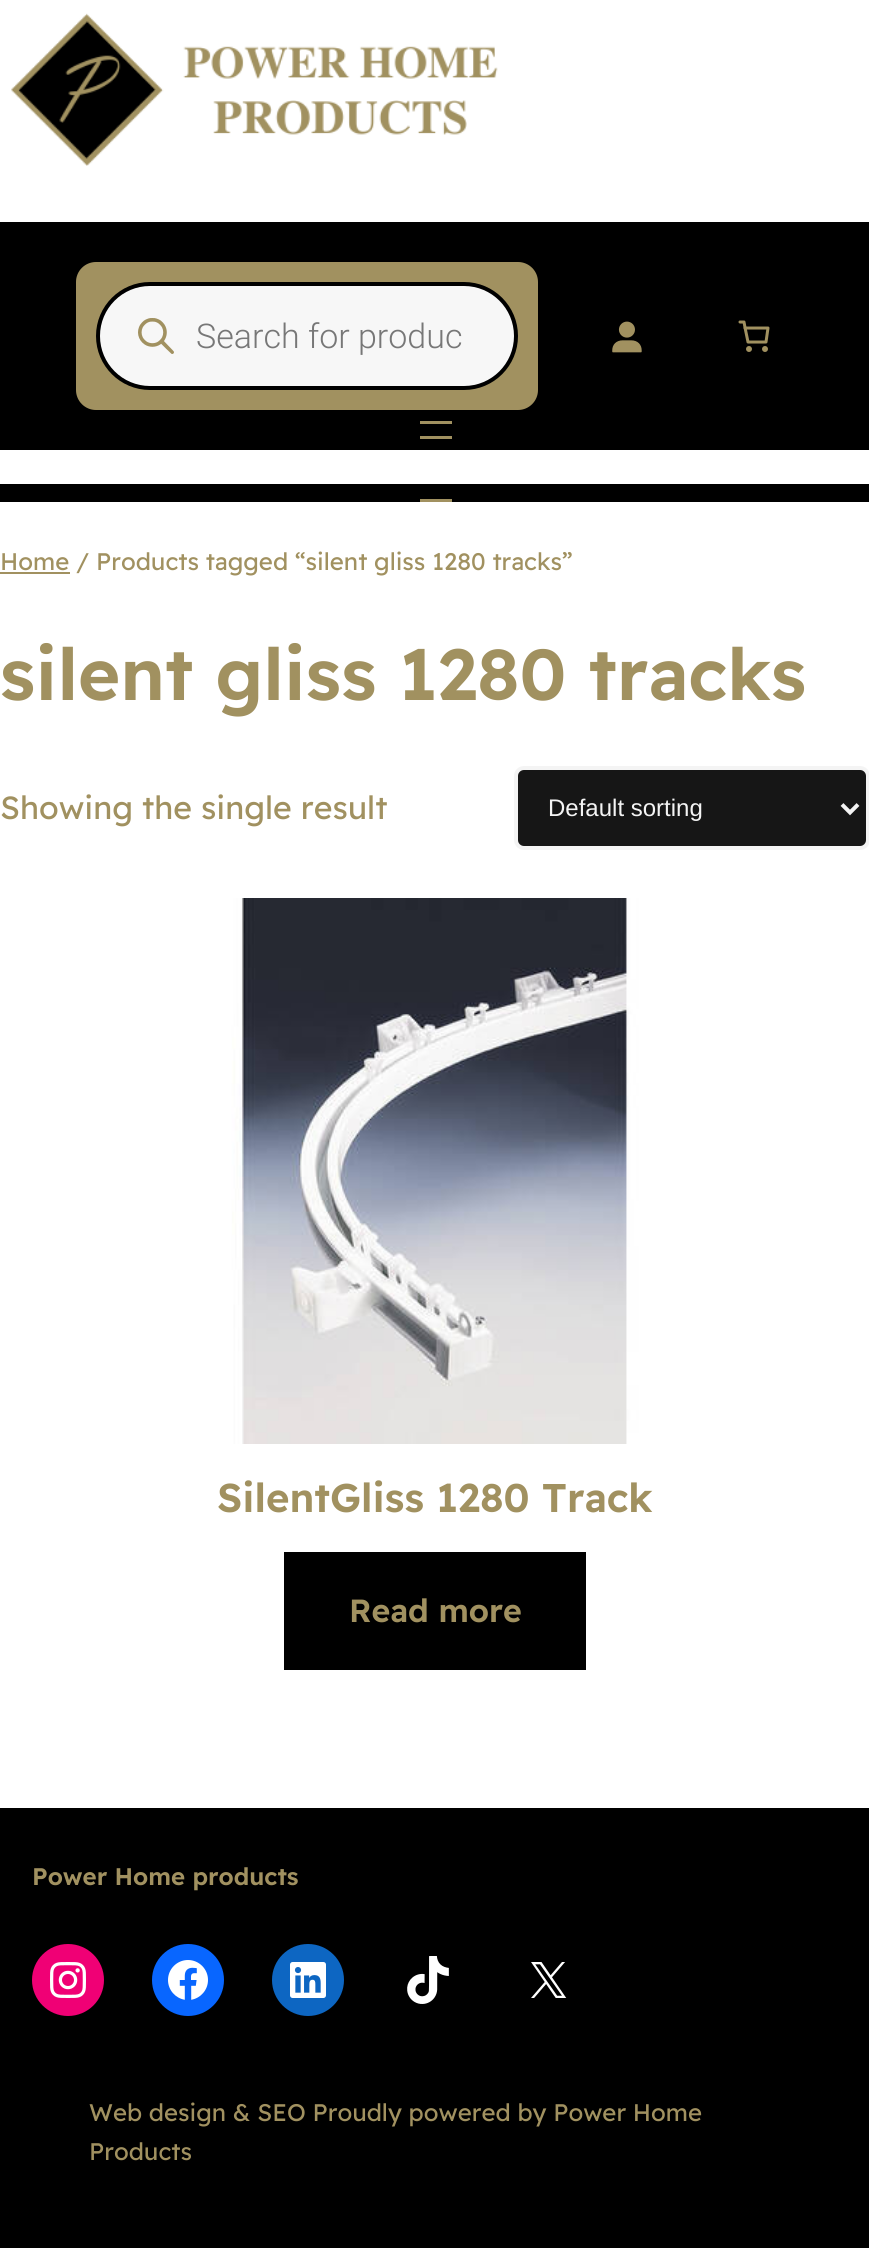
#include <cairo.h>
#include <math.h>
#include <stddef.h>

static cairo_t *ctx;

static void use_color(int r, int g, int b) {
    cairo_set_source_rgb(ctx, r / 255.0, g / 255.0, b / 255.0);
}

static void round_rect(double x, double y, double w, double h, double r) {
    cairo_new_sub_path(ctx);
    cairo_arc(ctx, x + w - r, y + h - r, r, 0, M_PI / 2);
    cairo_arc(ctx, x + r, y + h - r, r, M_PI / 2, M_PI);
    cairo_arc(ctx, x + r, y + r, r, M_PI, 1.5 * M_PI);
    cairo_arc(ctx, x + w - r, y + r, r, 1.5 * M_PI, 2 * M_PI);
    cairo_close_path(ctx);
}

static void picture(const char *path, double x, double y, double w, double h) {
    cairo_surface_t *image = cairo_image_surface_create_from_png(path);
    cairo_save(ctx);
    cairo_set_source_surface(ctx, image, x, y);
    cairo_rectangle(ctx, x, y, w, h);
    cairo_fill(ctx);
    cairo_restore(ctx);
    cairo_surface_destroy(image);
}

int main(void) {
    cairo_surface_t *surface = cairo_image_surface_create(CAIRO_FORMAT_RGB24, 869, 2248);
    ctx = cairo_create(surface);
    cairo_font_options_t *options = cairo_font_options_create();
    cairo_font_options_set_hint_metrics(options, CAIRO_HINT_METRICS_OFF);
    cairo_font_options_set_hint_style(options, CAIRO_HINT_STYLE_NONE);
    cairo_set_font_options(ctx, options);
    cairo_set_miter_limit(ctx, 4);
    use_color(255, 255, 255);
    cairo_paint(ctx);
    picture("img1.png", 11, 13, 487, 153);
    use_color(0, 0, 0);
    cairo_rectangle(ctx, 0, 222, 869, 228);
    cairo_fill(ctx);
    use_color(161, 145, 96);
    round_rect(76, 262, 462, 148, 20);
    cairo_fill(ctx);
    use_color(247, 247, 247);
    round_rect(98, 284, 418, 104, 52);
    cairo_fill_preserve(ctx);
    use_color(0, 0, 0);
    cairo_set_line_width(ctx, 4);
    cairo_stroke(ctx);
    picture("img2.png", 138, 318, 36, 36);
    cairo_select_font_face(ctx, "Roboto Light", CAIRO_FONT_SLANT_NORMAL, CAIRO_FONT_WEIGHT_NORMAL);
    cairo_set_font_size(ctx, 34);
    use_color(119, 119, 119);
    cairo_move_to(ctx, 196, 348);
    cairo_show_text(ctx, "Search for produc");
    picture("img3.png", 612, 321, 30, 32);
    picture("img4.png", 738, 320, 32, 32);
    use_color(0, 0, 0);
    cairo_rectangle(ctx, 0, 484, 869, 18);
    cairo_fill(ctx);
    use_color(161, 145, 96);
    cairo_rectangle(ctx, 420, 499, 32, 3);
    cairo_fill(ctx);
    cairo_rectangle(ctx, 420, 421, 32, 3);
    cairo_fill(ctx);
    cairo_rectangle(ctx, 420, 436, 32, 3);
    cairo_fill(ctx);
    cairo_rectangle(ctx, 0, 572, 70, 2);
    cairo_fill(ctx);
    cairo_select_font_face(ctx, "Readex Pro", CAIRO_FONT_SLANT_NORMAL, CAIRO_FONT_WEIGHT_NORMAL);
    cairo_set_font_size(ctx, 24);
    cairo_move_to(ctx, 0, 570);
    cairo_show_text(ctx, "Home / Products tagged “silent gliss 1280 tracks”");
    cairo_select_font_face(ctx, "Readex Pro SemiBold", CAIRO_FONT_SLANT_NORMAL, CAIRO_FONT_WEIGHT_NORMAL);
    cairo_set_font_size(ctx, 72);
    cairo_move_to(ctx, 0, 700);
    cairo_show_text(ctx, "silent gliss 1280 tracks");
    cairo_select_font_face(ctx, "Readex Pro", CAIRO_FONT_SLANT_NORMAL, CAIRO_FONT_WEIGHT_NORMAL);
    cairo_set_font_size(ctx, 32);
    cairo_move_to(ctx, 0, 819);
    cairo_show_text(ctx, "Showing the single result");
    use_color(22, 22, 22);
    round_rect(516, 768, 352, 80, 8);
    cairo_fill_preserve(ctx);
    use_color(244, 244, 244);
    cairo_stroke(ctx);
    cairo_new_path(ctx);
    cairo_move_to(ctx, 842, 804.5);
    cairo_line_to(ctx, 850, 812.5);
    cairo_line_to(ctx, 858, 804.5);
    cairo_stroke(ctx);
    cairo_select_font_face(ctx, "Liberation Sans", CAIRO_FONT_SLANT_NORMAL, CAIRO_FONT_WEIGHT_NORMAL);
    cairo_set_font_size(ctx, 24);
    cairo_move_to(ctx, 548, 816);
    cairo_show_text(ctx, "Default sorting");
    picture("img5.png", 0, 898, 869, 546);
    cairo_select_font_face(ctx, "Readex Pro SemiBold", CAIRO_FONT_SLANT_NORMAL, CAIRO_FONT_WEIGHT_NORMAL);
    cairo_set_font_size(ctx, 40);
    use_color(161, 145, 96);
    cairo_move_to(ctx, 217, 1512);
    cairo_show_text(ctx, "SilentGliss 1280 Track");
    use_color(0, 0, 0);
    cairo_rectangle(ctx, 284, 1552, 302, 118);
    cairo_fill(ctx);
    cairo_set_font_size(ctx, 32);
    use_color(161, 145, 96);
    cairo_move_to(ctx, 349, 1622);
    cairo_show_text(ctx, "Read more");
    use_color(0, 0, 0);
    cairo_rectangle(ctx, 0, 1808, 869, 440);
    cairo_fill(ctx);
    cairo_set_font_size(ctx, 24);
    use_color(161, 145, 96);
    cairo_move_to(ctx, 32, 1885);
    cairo_show_text(ctx, "Power Home products");
    use_color(240, 0, 117);
    cairo_new_path(ctx);
    cairo_arc(ctx, 68, 1980, 36, 0, 2 * M_PI);
    cairo_fill(ctx);
    picture("img6.png", 50, 1962, 36, 36);
    use_color(8, 102, 255);
    cairo_arc(ctx, 188, 1980, 36, 0, 2 * M_PI);
    cairo_fill(ctx);
    picture("img7.png", 168, 1960, 40, 40);
    use_color(13, 102, 194);
    cairo_arc(ctx, 308, 1980, 36, 0, 2 * M_PI);
    cairo_fill(ctx);
    picture("img8.png", 290, 1962, 36, 36);
    picture("img9.png", 407, 1956, 42, 48);
    picture("img10.png", 531, 1962, 36, 36);
    cairo_select_font_face(ctx, "Readex Pro", CAIRO_FONT_SLANT_NORMAL, CAIRO_FONT_WEIGHT_NORMAL);
    use_color(161, 145, 96);
    cairo_move_to(ctx, 89, 2121);
    cairo_show_text(ctx, "Web design & SEO Proudly powered by Power Home");
    cairo_move_to(ctx, 89, 2160);
    cairo_show_text(ctx, "Products");
    cairo_surface_write_to_png(surface, "result.png");
    cairo_font_options_destroy(options);
    cairo_destroy(ctx);
    cairo_surface_destroy(surface);
    return 0;
}
